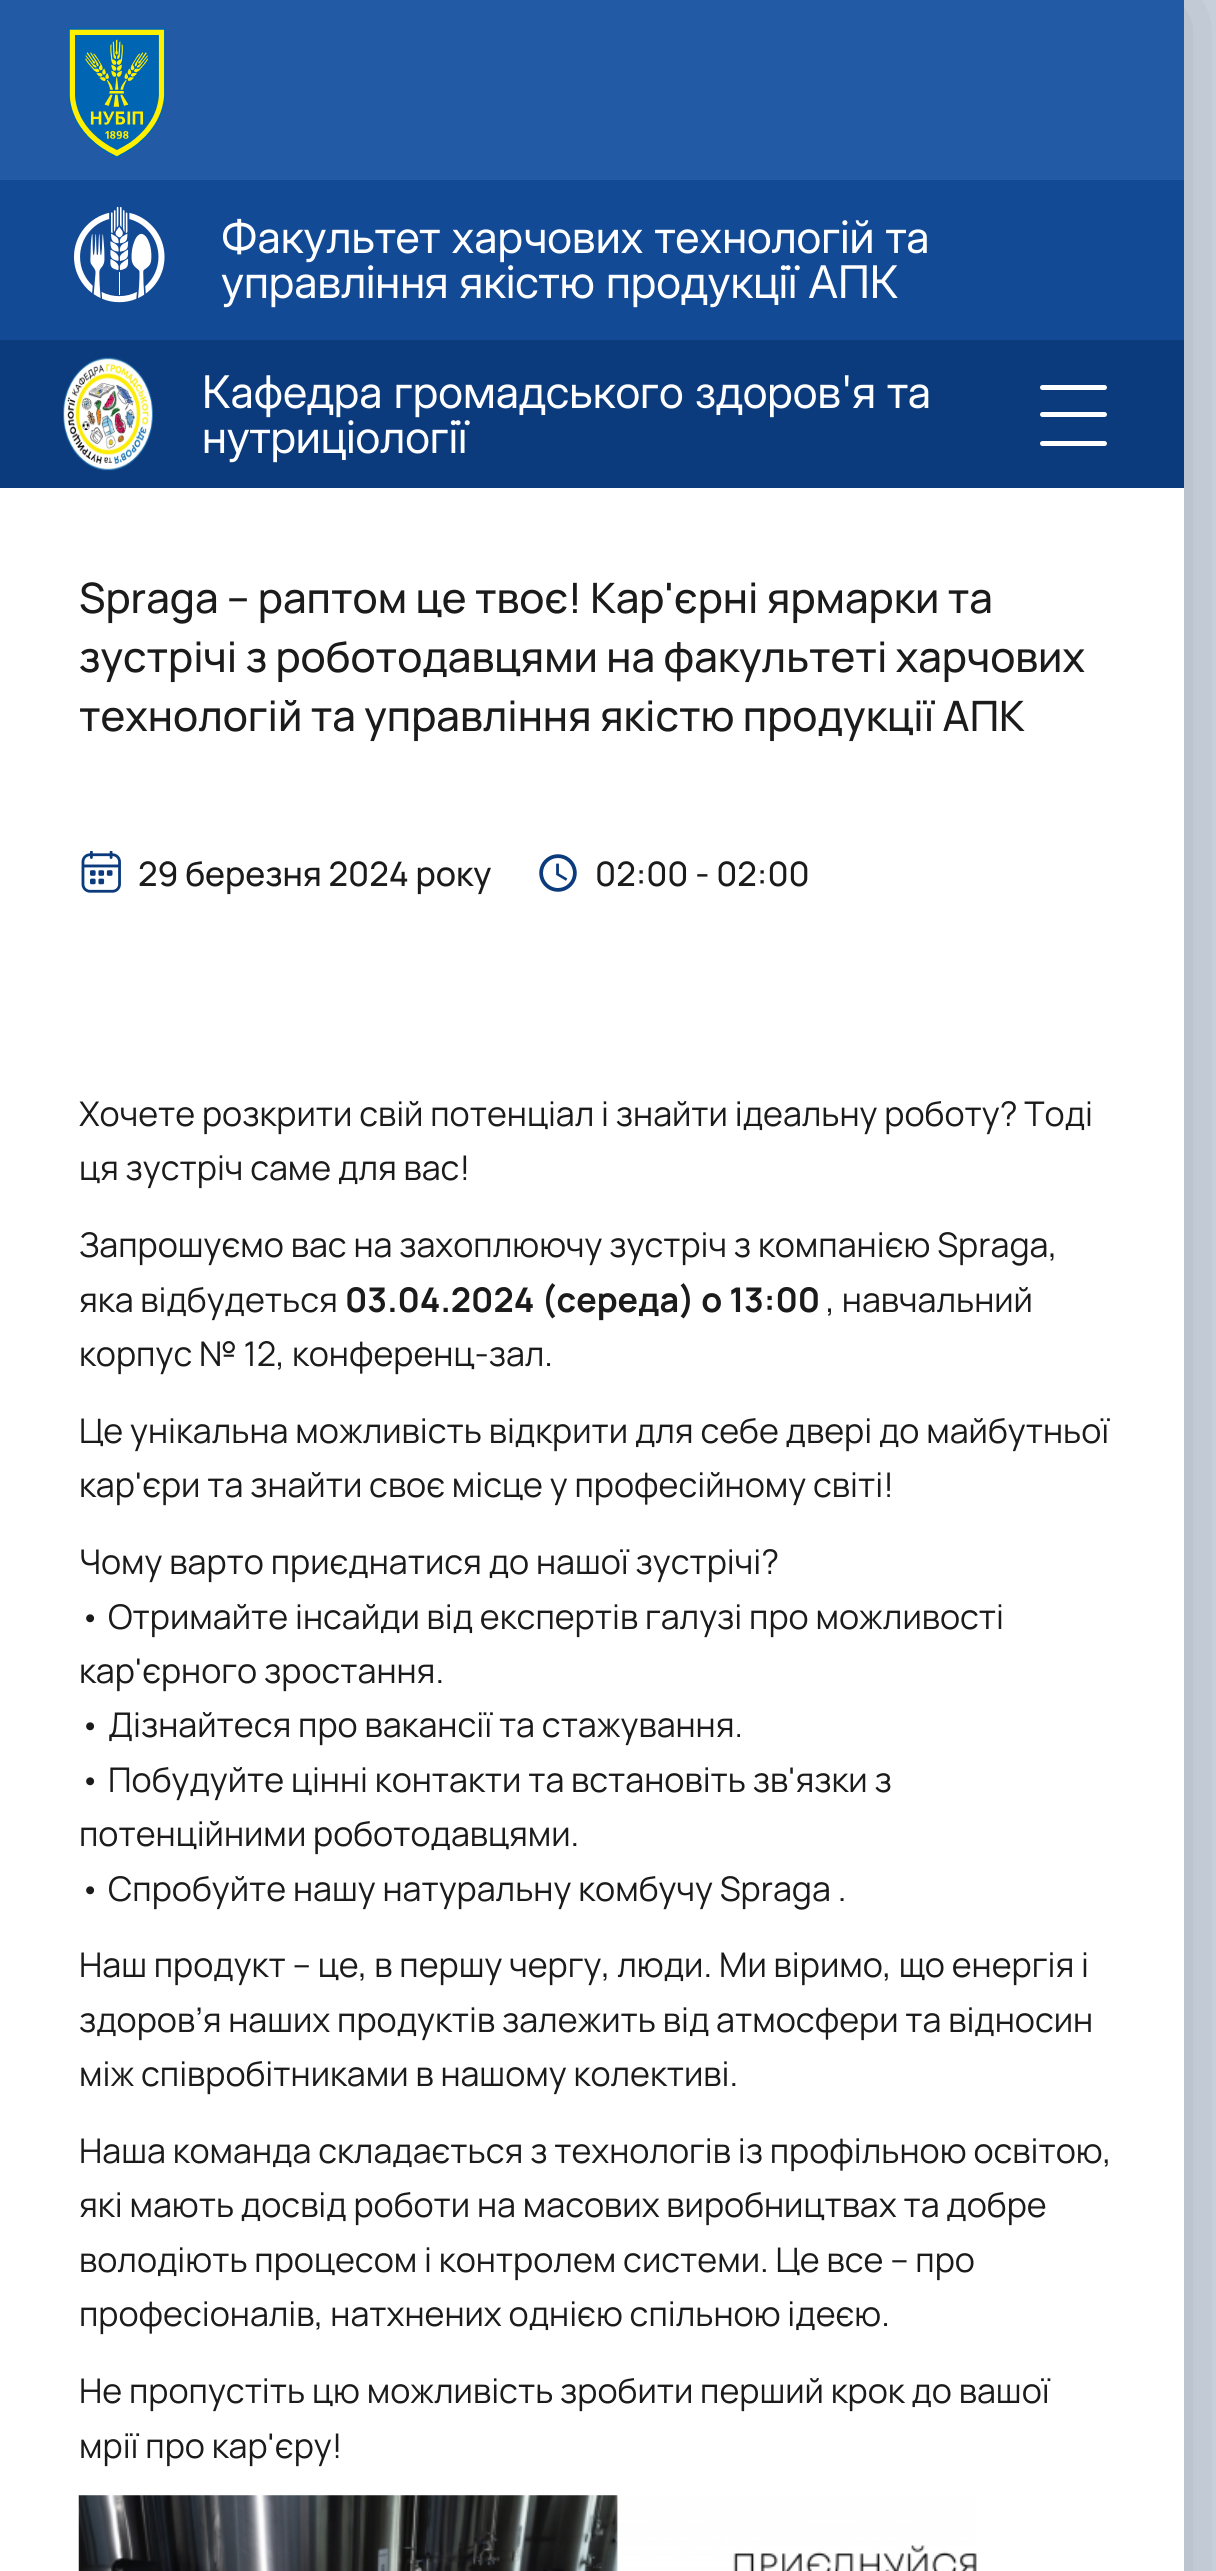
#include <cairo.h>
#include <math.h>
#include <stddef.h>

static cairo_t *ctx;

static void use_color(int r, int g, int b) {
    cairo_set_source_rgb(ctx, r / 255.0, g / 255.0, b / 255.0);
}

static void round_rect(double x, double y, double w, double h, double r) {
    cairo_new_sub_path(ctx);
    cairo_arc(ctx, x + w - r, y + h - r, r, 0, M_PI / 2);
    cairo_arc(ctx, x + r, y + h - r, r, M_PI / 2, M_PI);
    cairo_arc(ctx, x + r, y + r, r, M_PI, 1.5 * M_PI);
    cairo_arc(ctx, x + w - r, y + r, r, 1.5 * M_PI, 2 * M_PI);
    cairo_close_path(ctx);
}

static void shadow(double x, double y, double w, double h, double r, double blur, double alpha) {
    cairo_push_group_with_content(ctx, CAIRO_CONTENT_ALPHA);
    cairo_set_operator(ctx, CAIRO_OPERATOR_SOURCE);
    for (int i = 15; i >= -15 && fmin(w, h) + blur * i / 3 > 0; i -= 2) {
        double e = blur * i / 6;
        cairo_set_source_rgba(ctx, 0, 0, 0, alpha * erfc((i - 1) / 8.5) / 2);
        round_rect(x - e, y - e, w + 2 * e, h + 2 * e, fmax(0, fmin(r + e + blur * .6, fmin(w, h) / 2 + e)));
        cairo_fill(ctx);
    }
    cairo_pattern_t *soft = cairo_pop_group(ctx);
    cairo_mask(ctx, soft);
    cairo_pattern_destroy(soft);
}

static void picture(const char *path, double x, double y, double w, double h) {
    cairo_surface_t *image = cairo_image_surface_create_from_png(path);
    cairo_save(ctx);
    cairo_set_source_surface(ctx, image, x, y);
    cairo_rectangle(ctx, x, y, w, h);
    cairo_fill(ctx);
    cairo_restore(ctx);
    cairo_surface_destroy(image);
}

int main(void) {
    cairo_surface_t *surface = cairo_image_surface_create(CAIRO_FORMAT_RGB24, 1216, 2571);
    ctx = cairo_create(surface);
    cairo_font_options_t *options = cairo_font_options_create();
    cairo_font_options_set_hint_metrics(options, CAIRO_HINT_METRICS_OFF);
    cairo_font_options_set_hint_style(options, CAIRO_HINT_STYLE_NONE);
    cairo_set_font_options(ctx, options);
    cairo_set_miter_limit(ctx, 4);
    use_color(208, 217, 229);
    cairo_paint(ctx);
    use_color(0, 0, 0);
    shadow(0, 0, 1184, 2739, 0, 56, 0.2);
    use_color(35, 90, 166);
    cairo_rectangle(ctx, 0, 0, 1184, 180);
    cairo_fill(ctx);
    picture("img1.png", 68, 27, 98, 131);
    use_color(255, 255, 255);
    cairo_rectangle(ctx, 0, 488, 1184, 2083);
    cairo_fill(ctx);
    use_color(19, 74, 150);
    cairo_rectangle(ctx, 0, 180, 1184, 160);
    cairo_fill(ctx);
    picture("img2.png", 74, 206, 91, 97);
    cairo_select_font_face(ctx, "Inter Display", CAIRO_FONT_SLANT_NORMAL, CAIRO_FONT_WEIGHT_NORMAL);
    cairo_set_font_size(ctx, 45);
    use_color(255, 255, 255);
    cairo_move_to(ctx, 221, 253);
    cairo_show_text(ctx, "Факультет харчових технологій та");
    cairo_move_to(ctx, 221, 298);
    cairo_show_text(ctx, "управління якістю продукції АПК");
    use_color(12, 59, 125);
    cairo_rectangle(ctx, 0, 340, 1184, 148);
    cairo_fill(ctx);
    picture("img3.png", 63, 357, 90, 114);
    use_color(255, 255, 255);
    cairo_move_to(ctx, 202, 408);
    cairo_show_text(ctx, "Кафедра громадського здоров'я та");
    cairo_move_to(ctx, 202, 453);
    cairo_show_text(ctx, "нутриціології");
    round_rect(1040, 385, 67, 5, 2.5);
    cairo_fill(ctx);
    round_rect(1040, 412, 67, 5, 2.5);
    cairo_fill(ctx);
    round_rect(1040, 441, 67, 5, 2.5);
    cairo_fill(ctx);
    cairo_select_font_face(ctx, "Manrope Medium", CAIRO_FONT_SLANT_NORMAL, CAIRO_FONT_WEIGHT_NORMAL);
    cairo_set_font_size(ctx, 41.9);
    use_color(27, 27, 27);
    cairo_move_to(ctx, 79, 613);
    cairo_show_text(ctx, "Spraga – раптом це твоє! Кар'єрні ярмарки та");
    cairo_move_to(ctx, 79, 672);
    cairo_show_text(ctx, "зустрічі з роботодавцями на факультеті харчових");
    cairo_move_to(ctx, 79, 731);
    cairo_show_text(ctx, "технологій та управління якістю продукції АПК");
    picture("img4.png", 81, 851, 40, 42);
    cairo_set_font_size(ctx, 33.75);
    cairo_move_to(ctx, 138, 886);
    cairo_show_text(ctx, "29 березня 2024 року");
    picture("img5.png", 539, 854, 38, 38);
    cairo_move_to(ctx, 595, 886);
    cairo_show_text(ctx, "02:00 - 02:00");
    cairo_select_font_face(ctx, "Manrope", CAIRO_FONT_SLANT_NORMAL, CAIRO_FONT_WEIGHT_NORMAL);
    cairo_set_font_size(ctx, 34);
    cairo_move_to(ctx, 79, 1126);
    cairo_show_text(ctx, "Хочете розкрити свій потенціал і знайти ідеальну роботу? Тоді");
    cairo_move_to(ctx, 79, 1180);
    cairo_show_text(ctx, "ця зустріч саме для вас!");
    cairo_move_to(ctx, 79, 1257);
    cairo_show_text(ctx, "Запрошуємо вас на захоплюючу зустріч з компанією Spraga,");
    cairo_move_to(ctx, 79, 1312);
    cairo_show_text(ctx, "яка відбудеться");
    cairo_select_font_face(ctx, "Manrope", CAIRO_FONT_SLANT_NORMAL, CAIRO_FONT_WEIGHT_BOLD);
    cairo_move_to(ctx, 345, 1312);
    cairo_show_text(ctx, "03.04.2024 (середа) о 13:00");
    cairo_select_font_face(ctx, "Manrope", CAIRO_FONT_SLANT_NORMAL, CAIRO_FONT_WEIGHT_NORMAL);
    cairo_move_to(ctx, 826, 1312);
    cairo_show_text(ctx, ", навчальний");
    cairo_move_to(ctx, 79, 1366);
    cairo_show_text(ctx, "корпус № 12, конференц-зал.");
    cairo_move_to(ctx, 79, 1443);
    cairo_show_text(ctx, "Це унікальна можливість відкрити для себе двері до майбутньої");
    cairo_move_to(ctx, 79, 1497);
    cairo_show_text(ctx, "кар'єри та знайти своє місце у професійному світі!");
    cairo_move_to(ctx, 79, 1574);
    cairo_show_text(ctx, "Чому варто приєднатися до нашої зустрічі?");
    cairo_move_to(ctx, 79, 1629);
    cairo_show_text(ctx, "• Отримайте інсайди від експертів галузі про можливості");
    cairo_move_to(ctx, 79, 1683);
    cairo_show_text(ctx, "кар'єрного зростання.");
    cairo_move_to(ctx, 79, 1737);
    cairo_show_text(ctx, "• Дізнайтеся про вакансії та стажування.");
    cairo_move_to(ctx, 79, 1792);
    cairo_show_text(ctx, "• Побудуйте цінні контакти та встановіть зв'язки з");
    cairo_move_to(ctx, 79, 1846);
    cairo_show_text(ctx, "потенційними роботодавцями.");
    cairo_move_to(ctx, 79, 1901);
    cairo_show_text(ctx, "• Спробуйте нашу натуральну комбучу Spraga .");
    cairo_move_to(ctx, 79, 1977);
    cairo_show_text(ctx, "Наш продукт – це, в першу чергу, люди. Ми віримо, що енергія і");
    cairo_move_to(ctx, 79, 2032);
    cairo_show_text(ctx, "здоров’я наших продуктів залежить від атмосфери та відносин");
    cairo_move_to(ctx, 79, 2086);
    cairo_show_text(ctx, "між співробітниками в нашому колективі.");
    cairo_move_to(ctx, 79, 2163);
    cairo_show_text(ctx, "Наша команда складається з технологів із профільною освітою,");
    cairo_move_to(ctx, 79, 2217);
    cairo_show_text(ctx, "які мають досвід роботи на масових виробництвах та добре");
    cairo_move_to(ctx, 79, 2272);
    cairo_show_text(ctx, "володіють процесом і контролем системи. Це все – про");
    cairo_move_to(ctx, 79, 2326);
    cairo_show_text(ctx, "професіоналів, натхнених однією спільною ідеєю.");
    cairo_move_to(ctx, 79, 2403);
    cairo_show_text(ctx, "Не пропустіть цю можливість зробити перший крок до вашої");
    cairo_move_to(ctx, 79, 2458);
    cairo_show_text(ctx, "мрії про кар'єру!");
    picture("img6.png", 78, 2495, 899, 76);
    cairo_surface_write_to_png(surface, "result.png");
    cairo_font_options_destroy(options);
    cairo_destroy(ctx);
    cairo_surface_destroy(surface);
    return 0;
}
